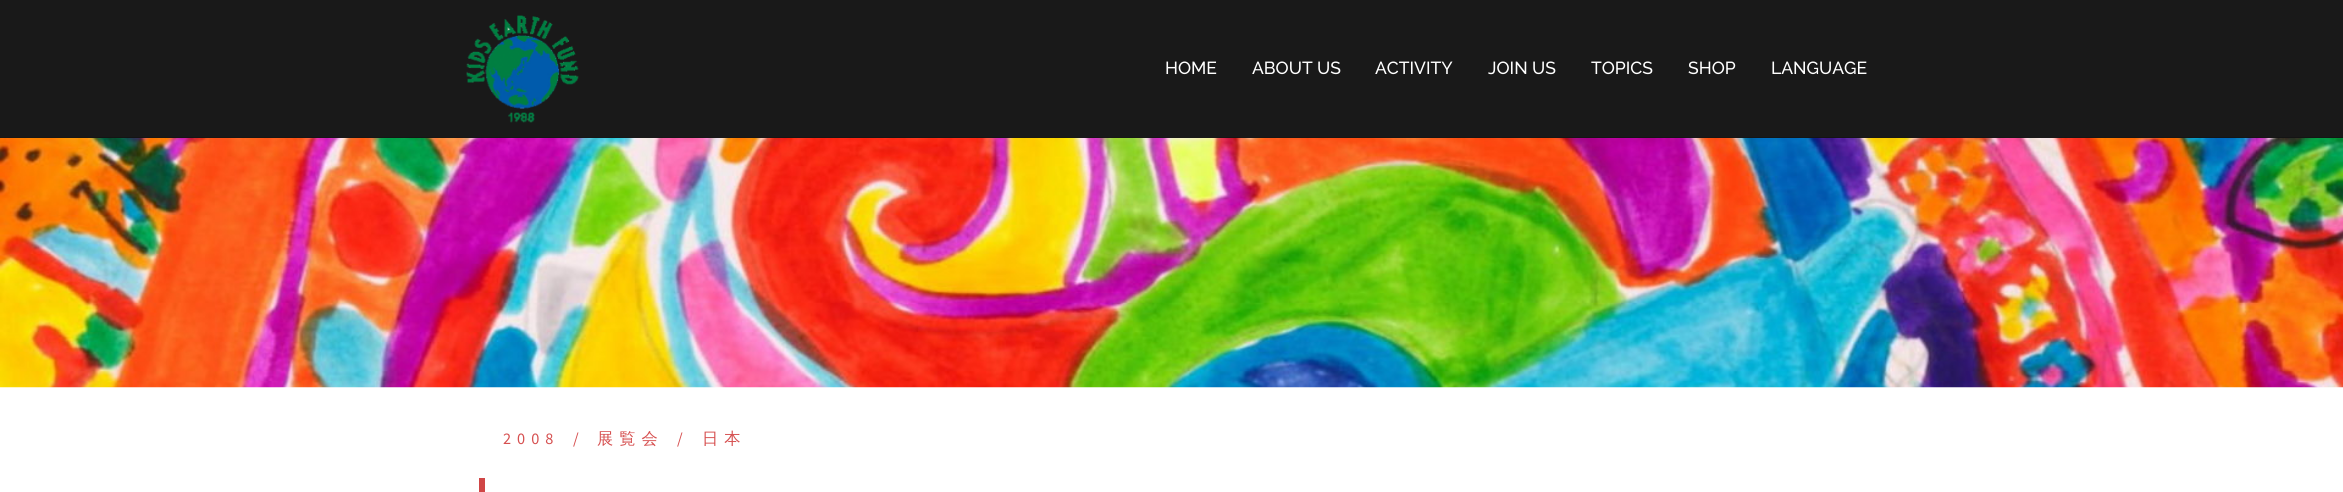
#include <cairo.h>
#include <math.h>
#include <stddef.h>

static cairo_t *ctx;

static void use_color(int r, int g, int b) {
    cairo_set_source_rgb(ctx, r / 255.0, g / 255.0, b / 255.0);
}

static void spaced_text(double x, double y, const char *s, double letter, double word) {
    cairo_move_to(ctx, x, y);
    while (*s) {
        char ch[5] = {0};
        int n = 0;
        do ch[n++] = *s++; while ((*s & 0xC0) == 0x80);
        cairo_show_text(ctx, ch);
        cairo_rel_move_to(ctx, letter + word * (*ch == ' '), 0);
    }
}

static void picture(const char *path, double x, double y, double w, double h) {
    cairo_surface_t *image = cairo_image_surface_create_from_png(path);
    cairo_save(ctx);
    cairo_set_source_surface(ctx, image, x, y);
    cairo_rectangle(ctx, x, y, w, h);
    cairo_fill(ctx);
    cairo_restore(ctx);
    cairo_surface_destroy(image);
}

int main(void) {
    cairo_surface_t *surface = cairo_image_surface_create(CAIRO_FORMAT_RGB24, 2343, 492);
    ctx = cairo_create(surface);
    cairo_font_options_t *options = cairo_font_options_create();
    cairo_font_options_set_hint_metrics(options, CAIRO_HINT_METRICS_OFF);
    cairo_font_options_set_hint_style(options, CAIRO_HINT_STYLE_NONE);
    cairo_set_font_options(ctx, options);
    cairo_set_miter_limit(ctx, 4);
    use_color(255, 255, 255);
    cairo_paint(ctx);
    picture("img2.png", 0, 137, 2343, 251);
    cairo_set_source_rgba(ctx, 0, 0, 0, 0.9);
    cairo_rectangle(ctx, 0, 0, 2343, 138);
    cairo_fill(ctx);
    picture("img1.png", 466, 15, 113, 108);
    cairo_select_font_face(ctx, "Raleway Medium", CAIRO_FONT_SLANT_NORMAL, CAIRO_FONT_WEIGHT_NORMAL);
    cairo_set_font_size(ctx, 17.5);
    use_color(255, 255, 255);
    cairo_move_to(ctx, 1165, 74);
    cairo_show_text(ctx, "HOME");
    cairo_move_to(ctx, 1252, 74);
    cairo_show_text(ctx, "ABOUT US");
    cairo_move_to(ctx, 1375, 74);
    cairo_show_text(ctx, "ACTIVITY");
    cairo_move_to(ctx, 1488, 74);
    cairo_show_text(ctx, "JOIN US");
    cairo_move_to(ctx, 1591, 74);
    cairo_show_text(ctx, "TOPICS");
    cairo_move_to(ctx, 1688, 74);
    cairo_show_text(ctx, "SHOP");
    cairo_move_to(ctx, 1771, 74);
    cairo_show_text(ctx, "LANGUAGE");
    cairo_select_font_face(ctx, "Source Sans Pro", CAIRO_FONT_SLANT_NORMAL, CAIRO_FONT_WEIGHT_NORMAL);
    cairo_set_font_size(ctx, 16.25);
    use_color(214, 80, 80);
    spaced_text(503, 444, "2008", 6, 0);
    spaced_text(573, 444, "/", 6, 0);
    cairo_select_font_face(ctx, "WenQuanYi Zen Hei Medium", CAIRO_FONT_SLANT_NORMAL, CAIRO_FONT_WEIGHT_NORMAL);
    spaced_text(597, 444, "展覧会", 6, 0);
    cairo_select_font_face(ctx, "Source Sans Pro", CAIRO_FONT_SLANT_NORMAL, CAIRO_FONT_WEIGHT_NORMAL);
    spaced_text(677, 444, "/", 6, 0);
    cairo_select_font_face(ctx, "WenQuanYi Zen Hei Medium", CAIRO_FONT_SLANT_NORMAL, CAIRO_FONT_WEIGHT_NORMAL);
    spaced_text(702, 444, "日本", 6, 0);
    use_color(208, 70, 70);
    cairo_rectangle(ctx, 479, 478, 6, 14);
    cairo_fill(ctx);
    cairo_surface_write_to_png(surface, "result.png");
    cairo_font_options_destroy(options);
    cairo_destroy(ctx);
    cairo_surface_destroy(surface);
    return 0;
}
